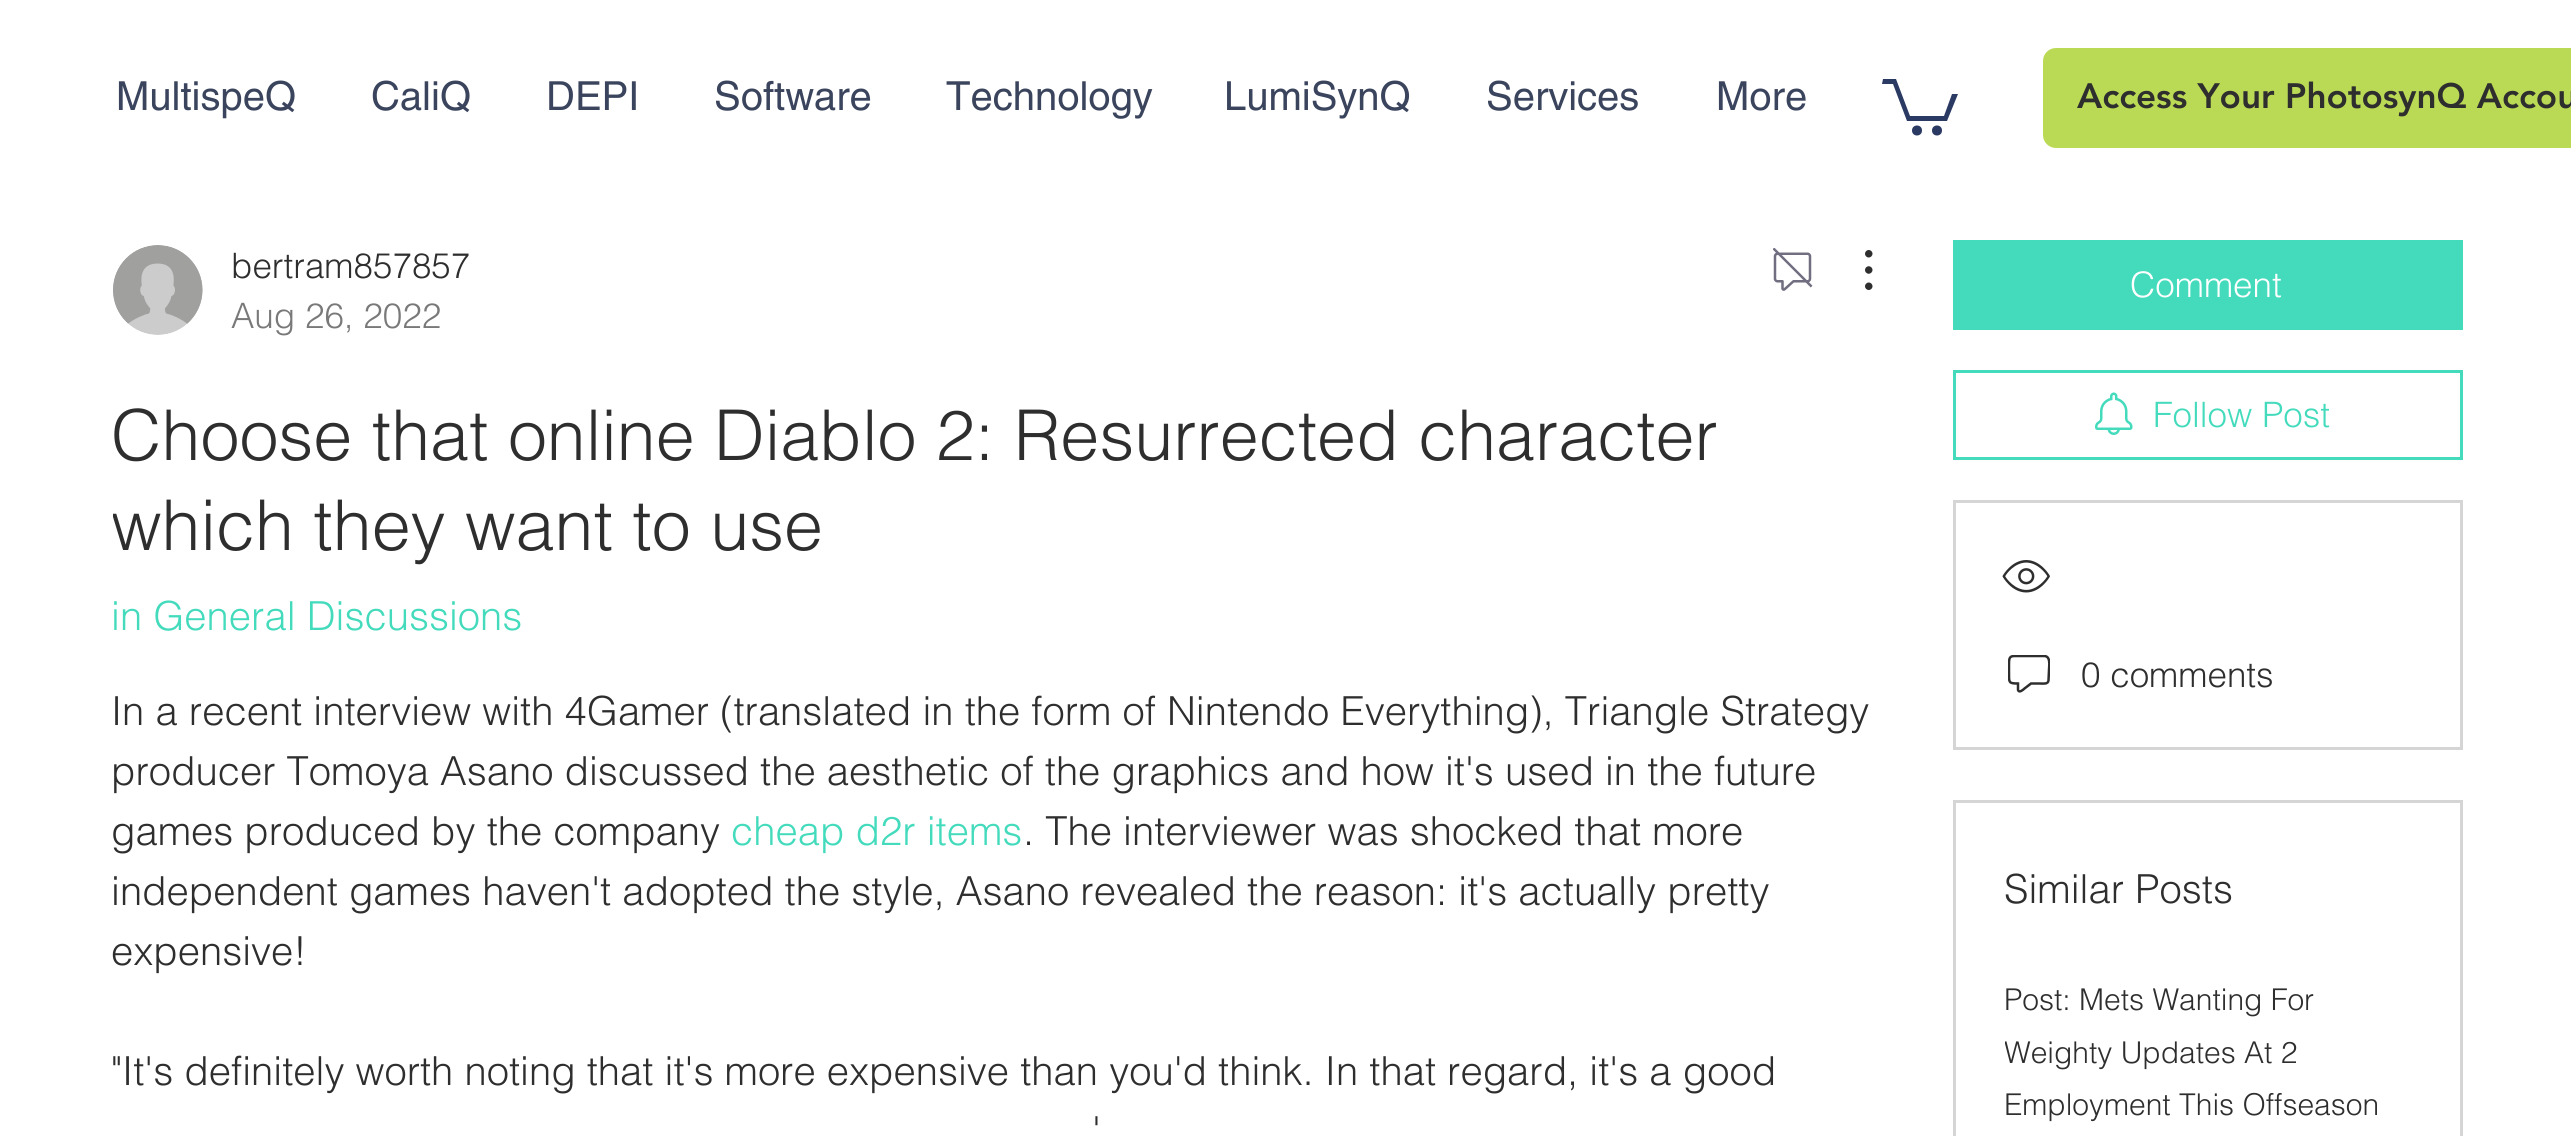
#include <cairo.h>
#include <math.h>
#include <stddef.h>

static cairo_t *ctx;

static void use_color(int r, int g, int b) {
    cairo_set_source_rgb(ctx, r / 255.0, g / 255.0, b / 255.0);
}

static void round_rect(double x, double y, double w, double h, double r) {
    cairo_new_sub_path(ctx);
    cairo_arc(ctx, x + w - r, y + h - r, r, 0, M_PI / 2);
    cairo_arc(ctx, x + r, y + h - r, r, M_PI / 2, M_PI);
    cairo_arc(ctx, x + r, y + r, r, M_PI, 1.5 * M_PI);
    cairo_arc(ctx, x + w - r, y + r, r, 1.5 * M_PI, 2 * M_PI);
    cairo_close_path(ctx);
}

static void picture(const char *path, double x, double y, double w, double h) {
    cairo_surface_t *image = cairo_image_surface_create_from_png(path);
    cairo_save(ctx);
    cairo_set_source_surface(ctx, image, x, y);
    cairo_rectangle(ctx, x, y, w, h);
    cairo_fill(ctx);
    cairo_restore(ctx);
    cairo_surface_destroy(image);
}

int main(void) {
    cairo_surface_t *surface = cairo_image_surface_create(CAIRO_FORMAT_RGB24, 2571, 1136);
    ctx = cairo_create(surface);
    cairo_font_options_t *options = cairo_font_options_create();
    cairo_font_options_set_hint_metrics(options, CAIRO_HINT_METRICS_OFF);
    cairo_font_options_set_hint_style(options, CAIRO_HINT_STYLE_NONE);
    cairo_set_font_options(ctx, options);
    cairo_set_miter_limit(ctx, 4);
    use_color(255, 255, 255);
    cairo_paint(ctx);
    cairo_select_font_face(ctx, "helvetica", CAIRO_FONT_SLANT_NORMAL, CAIRO_FONT_WEIGHT_NORMAL);
    cairo_set_font_size(ctx, 40);
    use_color(58, 68, 93);
    cairo_move_to(ctx, 116, 110);
    cairo_show_text(ctx, "MultispeQ");
    cairo_move_to(ctx, 371, 110);
    cairo_show_text(ctx, "CaliQ");
    cairo_move_to(ctx, 546, 110);
    cairo_show_text(ctx, "DEPI");
    cairo_move_to(ctx, 714, 110);
    cairo_show_text(ctx, "Software");
    cairo_move_to(ctx, 946, 110);
    cairo_show_text(ctx, "Technology");
    cairo_move_to(ctx, 1224, 110);
    cairo_show_text(ctx, "LumiSynQ");
    cairo_move_to(ctx, 1486, 110);
    cairo_show_text(ctx, "Services");
    cairo_move_to(ctx, 1716, 110);
    cairo_show_text(ctx, "More");
    use_color(42, 58, 99);
    cairo_new_path(ctx);
    cairo_move_to(ctx, 1958, 94);
    cairo_line_to(ctx, 1947, 121);
    cairo_line_to(ctx, 1907, 121);
    cairo_line_to(ctx, 1893, 84);
    cairo_line_to(ctx, 1882, 84);
    cairo_line_to(ctx, 1883, 79);
    cairo_line_to(ctx, 1896, 79);
    cairo_line_to(ctx, 1910, 116);
    cairo_line_to(ctx, 1944, 116);
    cairo_line_to(ctx, 1952, 94);
    cairo_fill(ctx);
    cairo_arc(ctx, 1937, 130.5, 5, 0, 2 * M_PI);
    cairo_fill(ctx);
    cairo_arc(ctx, 1917, 130.5, 5, 0, 2 * M_PI);
    cairo_fill(ctx);
    use_color(186, 218, 85);
    round_rect(2043, 48, 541, 100, 13);
    cairo_fill(ctx);
    cairo_select_font_face(ctx, "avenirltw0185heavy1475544 Black", CAIRO_FONT_SLANT_NORMAL, CAIRO_FONT_WEIGHT_NORMAL);
    cairo_set_font_size(ctx, 35);
    use_color(47, 46, 46);
    cairo_move_to(ctx, 2077, 108);
    cairo_show_text(ctx, "Access Your PhotosynQ Accou");
    picture("img1.png", 113, 245, 90, 90);
    cairo_select_font_face(ctx, "helvetica Light", CAIRO_FONT_SLANT_NORMAL, CAIRO_FONT_WEIGHT_NORMAL);
    cairo_move_to(ctx, 231, 278);
    cairo_show_text(ctx, "bertram857857");
    use_color(122, 121, 121);
    cairo_move_to(ctx, 231, 328);
    cairo_show_text(ctx, "Aug 26, 2022");
    picture("img2.png", 1773, 248, 40, 43);
    picture("img3.png", 1865, 250, 8, 40);
    cairo_set_font_size(ctx, 70);
    use_color(47, 46, 46);
    cairo_move_to(ctx, 111, 460);
    cairo_show_text(ctx, "Choose that online Diablo 2: Resurrected character");
    cairo_save(ctx);
    cairo_rectangle(ctx, 113, 390, 1760, 180);
    cairo_clip(ctx);
    cairo_move_to(ctx, 111, 550);
    cairo_show_text(ctx, "which they want to use");
    cairo_restore(ctx);
    cairo_set_font_size(ctx, 40);
    use_color(68, 219, 189);
    cairo_move_to(ctx, 111, 630);
    cairo_show_text(ctx, "in General Discussions");
    use_color(47, 46, 46);
    cairo_move_to(ctx, 111, 725);
    cairo_show_text(ctx, "In a recent interview with 4Gamer (translated in the form of Nintendo Everything), Triangle Strategy");
    cairo_move_to(ctx, 111, 785);
    cairo_show_text(ctx, "producer Tomoya Asano discussed the aesthetic of the graphics and how it's used in the future");
    cairo_move_to(ctx, 111, 845);
    cairo_show_text(ctx, "games produced by the company");
    use_color(68, 219, 189);
    cairo_move_to(ctx, 731, 845);
    cairo_show_text(ctx, "cheap d2r items");
    use_color(47, 46, 46);
    cairo_move_to(ctx, 1023, 845);
    cairo_show_text(ctx, ". The interviewer was shocked that more");
    cairo_move_to(ctx, 111, 905);
    cairo_show_text(ctx, "independent games haven't adopted the style, Asano revealed the reason: it's actually pretty");
    cairo_move_to(ctx, 111, 965);
    cairo_show_text(ctx, "expensive!");
    cairo_move_to(ctx, 111, 1085);
    cairo_show_text(ctx, "\"It's definitely worth noting that it's more expensive than you'd think. In that regard, it's a good");
    cairo_move_to(ctx, 1092, 1145);
    cairo_show_text(ctx, "'");
    use_color(68, 219, 189);
    cairo_rectangle(ctx, 1953, 240, 510, 90);
    cairo_fill(ctx);
    cairo_set_font_size(ctx, 35);
    use_color(255, 255, 255);
    cairo_move_to(ctx, 2130, 297);
    cairo_show_text(ctx, "Comment");
    cairo_rectangle(ctx, 1954.5, 371.5, 507, 87);
    use_color(68, 219, 189);
    cairo_set_line_width(ctx, 3);
    cairo_stroke(ctx);
    picture("img4.png", 2095, 392, 38, 43);
    cairo_move_to(ctx, 2153, 427);
    cairo_show_text(ctx, "Follow Post");
    cairo_rectangle(ctx, 1954.5, 501.5, 507, 247);
    use_color(213, 213, 213);
    cairo_stroke(ctx);
    picture("img5.png", 2002, 560, 48, 33);
    cairo_save(ctx);
    cairo_rectangle(ctx, 2008, 655, 42, 38);
    cairo_clip(ctx);
    cairo_new_path(ctx);
    cairo_move_to(ctx, 2031, 683.5);
    cairo_line_to(ctx, 2024.5, 688.5);
    cairo_curve_to(ctx, 2023.5, 689.5, 2019, 693.5, 2018, 690);
    cairo_line_to(ctx, 2018, 683.5);
    cairo_curve_to(ctx, 2008.5, 683.5, 2009, 682.5, 2009, 673);
    cairo_line_to(ctx, 2009, 663.5);
    cairo_curve_to(ctx, 2009, 655.5, 2011, 656, 2018.5, 656);
    cairo_line_to(ctx, 2044.5, 656);
    cairo_curve_to(ctx, 2051, 656.5, 2049, 666, 2049, 670);
    cairo_line_to(ctx, 2048.5, 680.5);
    cairo_curve_to(ctx, 2048, 684.5, 2043, 683.5, 2040, 683.5);
    cairo_close_path(ctx);
    use_color(47, 46, 46);
    cairo_set_line_width(ctx, 2.5);
    cairo_stroke(ctx);
    cairo_restore(ctx);
    use_color(47, 46, 46);
    cairo_move_to(ctx, 2081, 687);
    cairo_show_text(ctx, "0 comments");
    cairo_rectangle(ctx, 1954.5, 801.5, 507, 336);
    use_color(213, 213, 213);
    cairo_stroke(ctx);
    cairo_set_font_size(ctx, 40);
    use_color(47, 46, 46);
    cairo_move_to(ctx, 2004, 903);
    cairo_show_text(ctx, "Similar Posts");
    cairo_set_font_size(ctx, 30);
    cairo_move_to(ctx, 2004, 1010);
    cairo_show_text(ctx, "Post: Mets Wanting For");
    cairo_save(ctx);
    cairo_rectangle(ctx, 2005, 973, 405, 157);
    cairo_clip(ctx);
    cairo_move_to(ctx, 2004, 1063);
    cairo_show_text(ctx, "Weighty Updates At 2");
    cairo_restore(ctx);
    cairo_move_to(ctx, 2004, 1115);
    cairo_show_text(ctx, "Employment This Offseason");
    cairo_surface_write_to_png(surface, "result.png");
    cairo_font_options_destroy(options);
    cairo_destroy(ctx);
    cairo_surface_destroy(surface);
    return 0;
}
